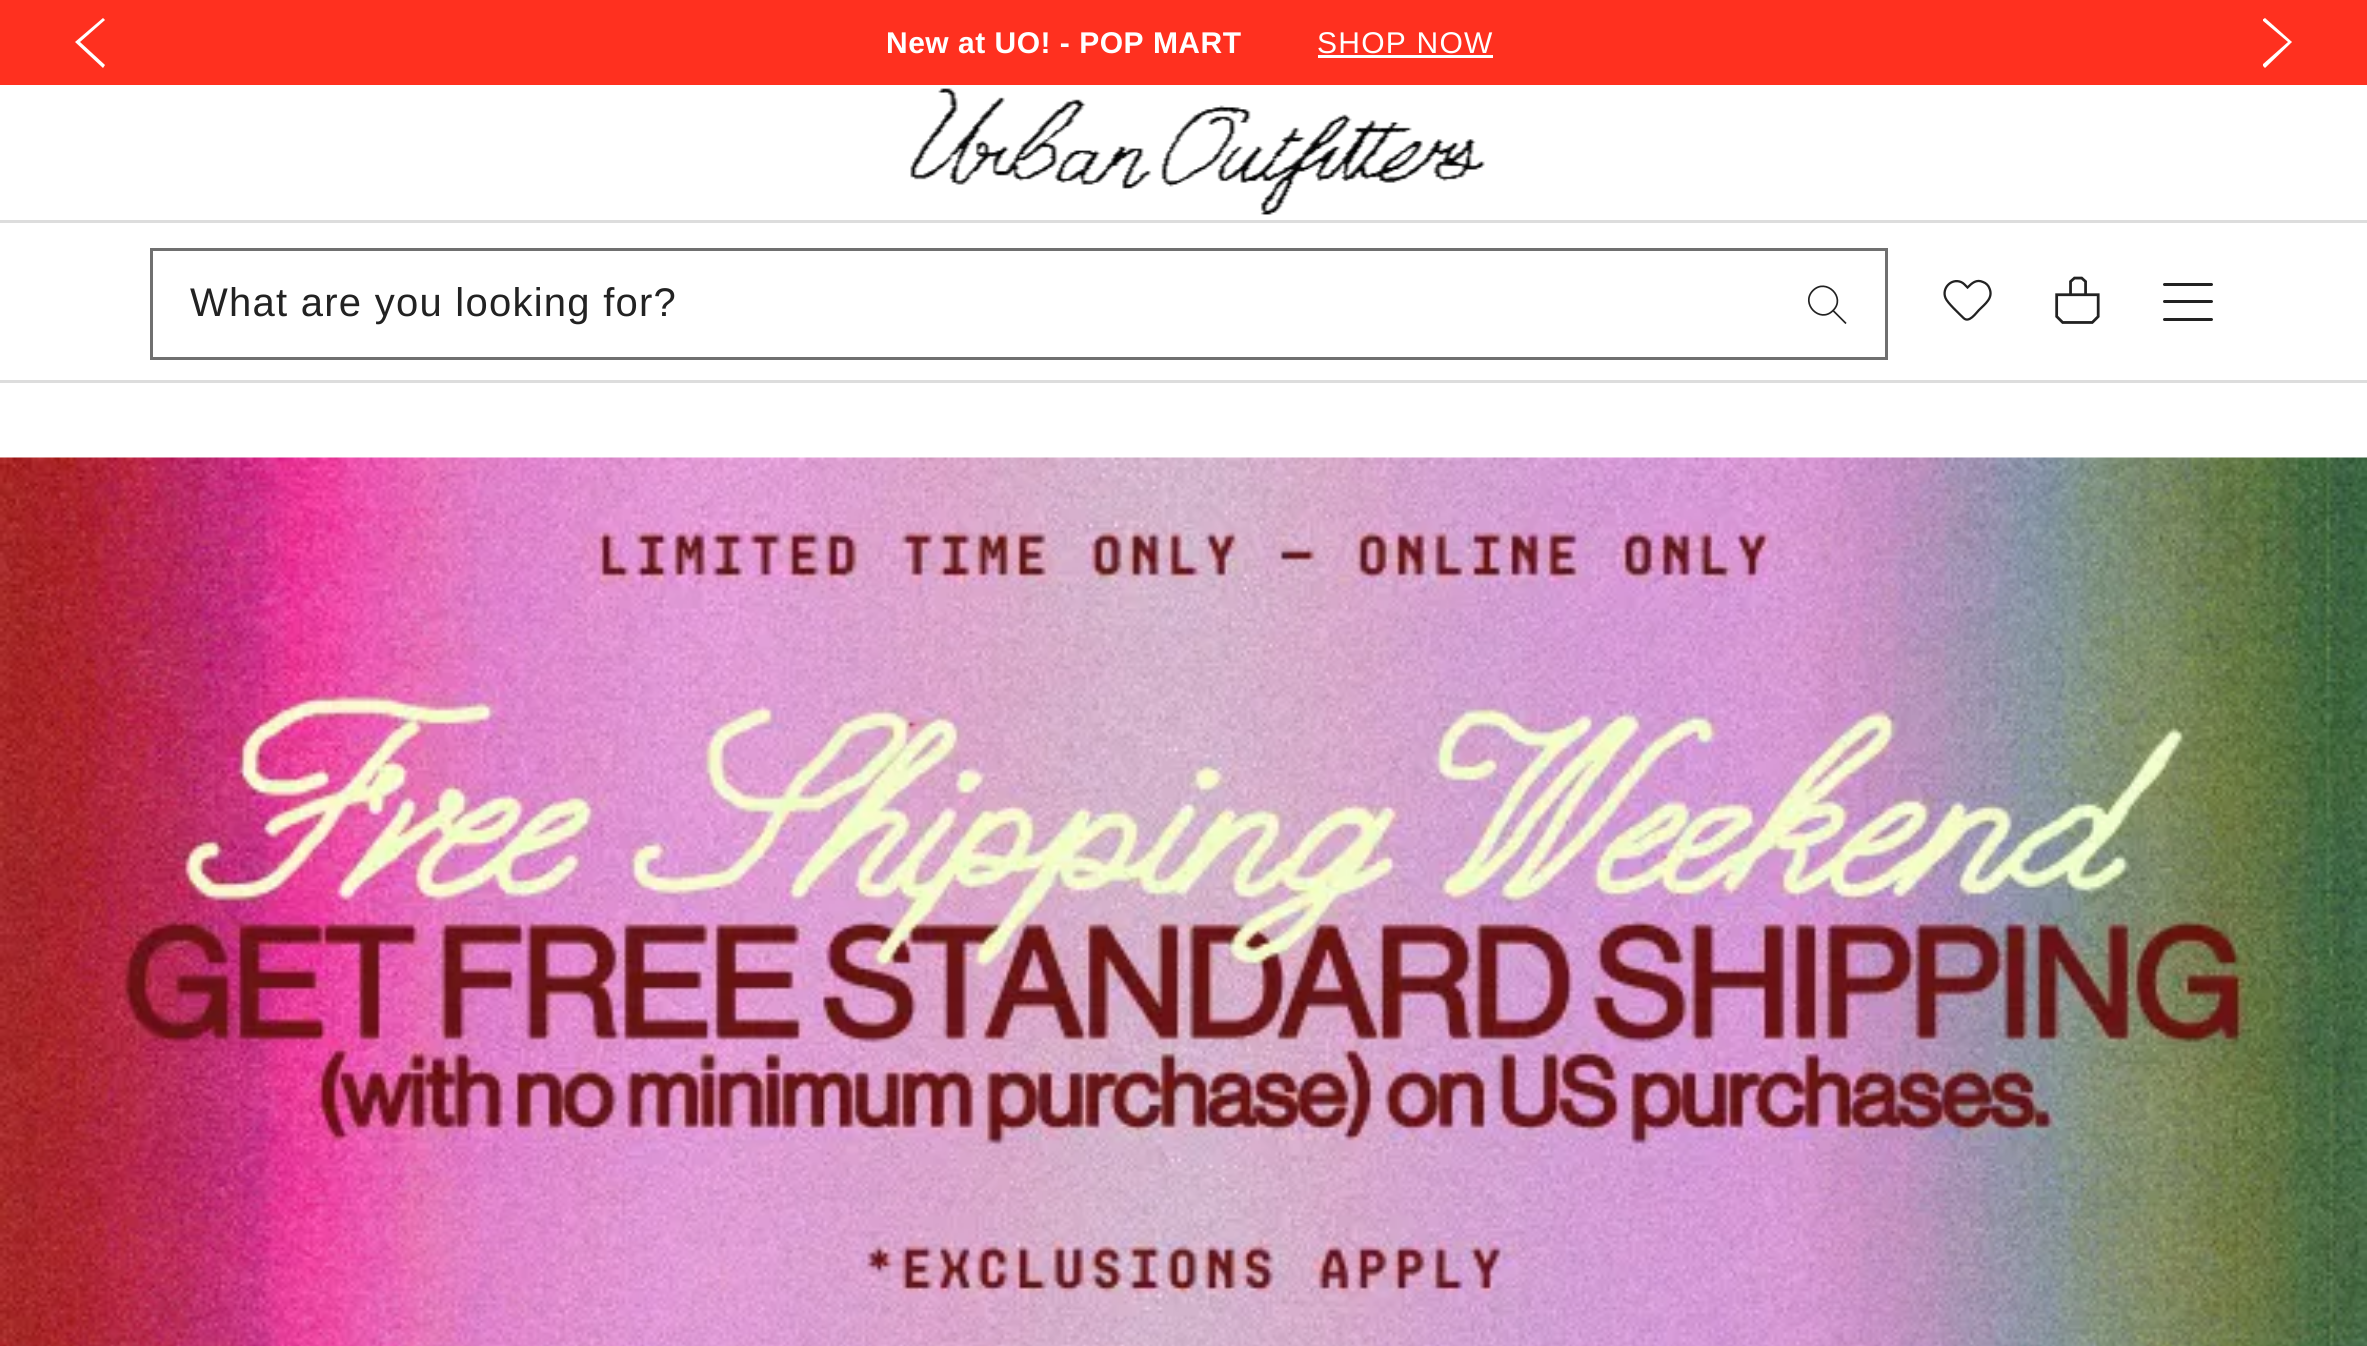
#include <cairo.h>
#include <math.h>
#include <stddef.h>

static cairo_t *ctx;

static void use_color(int r, int g, int b) {
    cairo_set_source_rgb(ctx, r / 255.0, g / 255.0, b / 255.0);
}

static void spaced_text(double x, double y, const char *s, double letter, double word) {
    cairo_move_to(ctx, x, y);
    while (*s) {
        char ch[5] = {0};
        int n = 0;
        do ch[n++] = *s++; while ((*s & 0xC0) == 0x80);
        cairo_show_text(ctx, ch);
        cairo_rel_move_to(ctx, letter + word * (*ch == ' '), 0);
    }
}

static void round_rect(double x, double y, double w, double h, double r) {
    cairo_new_sub_path(ctx);
    cairo_arc(ctx, x + w - r, y + h - r, r, 0, M_PI / 2);
    cairo_arc(ctx, x + r, y + h - r, r, M_PI / 2, M_PI);
    cairo_arc(ctx, x + r, y + r, r, M_PI, 1.5 * M_PI);
    cairo_arc(ctx, x + w - r, y + r, r, 1.5 * M_PI, 2 * M_PI);
    cairo_close_path(ctx);
}

static void picture(const char *path, double x, double y, double w, double h) {
    cairo_surface_t *image = cairo_image_surface_create_from_png(path);
    cairo_save(ctx);
    cairo_set_source_surface(ctx, image, x, y);
    cairo_rectangle(ctx, x, y, w, h);
    cairo_fill(ctx);
    cairo_restore(ctx);
    cairo_surface_destroy(image);
}

int main(void) {
    cairo_surface_t *surface = cairo_image_surface_create(CAIRO_FORMAT_RGB24, 2367, 1346);
    ctx = cairo_create(surface);
    cairo_font_options_t *options = cairo_font_options_create();
    cairo_font_options_set_hint_metrics(options, CAIRO_HINT_METRICS_OFF);
    cairo_font_options_set_hint_style(options, CAIRO_HINT_STYLE_NONE);
    cairo_set_font_options(ctx, options);
    cairo_set_miter_limit(ctx, 4);
    use_color(255, 255, 255);
    cairo_paint(ctx);
    use_color(255, 48, 31);
    cairo_rectangle(ctx, 0, 0, 2367, 85);
    cairo_fill(ctx);
    use_color(255, 255, 255);
    cairo_new_path(ctx);
    cairo_move_to(ctx, 103, 18);
    cairo_line_to(ctx, 105, 20);
    cairo_line_to(ctx, 80, 42);
    cairo_line_to(ctx, 105, 65);
    cairo_line_to(ctx, 103, 68);
    cairo_line_to(ctx, 75, 42);
    cairo_close_path(ctx);
    cairo_fill(ctx);
    cairo_select_font_face(ctx, "Liberation Sans", CAIRO_FONT_SLANT_NORMAL, CAIRO_FONT_WEIGHT_BOLD);
    cairo_set_font_size(ctx, 30);
    spaced_text(886, 53, "New at UO! - POP MART", 0.5, 0);
    cairo_select_font_face(ctx, "Liberation Sans", CAIRO_FONT_SLANT_NORMAL, CAIRO_FONT_WEIGHT_NORMAL);
    spaced_text(1317, 53, "SHOP NOW", 1.25, 0);
    cairo_rectangle(ctx, 1318, 55, 175, 3);
    cairo_fill(ctx);
    cairo_save(ctx);
    cairo_rectangle(ctx, 2263, 18, 30, 50);
    cairo_clip(ctx);
    cairo_new_path(ctx);
    cairo_move_to(ctx, 2265, 68);
    cairo_line_to(ctx, 2262, 65);
    cairo_line_to(ctx, 2288, 42);
    cairo_line_to(ctx, 2262, 20);
    cairo_line_to(ctx, 2265, 18);
    cairo_line_to(ctx, 2292, 42);
    cairo_close_path(ctx);
    cairo_fill(ctx);
    cairo_restore(ctx);
    use_color(221, 221, 221);
    cairo_rectangle(ctx, 0, 380, 2367, 3);
    cairo_fill(ctx);
    cairo_rectangle(ctx, 0, 220, 2367, 3);
    cairo_fill(ctx);
    picture("img1.png", 910, 88, 575, 127);
    cairo_rectangle(ctx, 151.5, 249.5, 1735, 109);
    use_color(112, 112, 112);
    cairo_set_line_width(ctx, 3);
    cairo_stroke(ctx);
    cairo_set_font_size(ctx, 40);
    use_color(34, 34, 34);
    spaced_text(190, 316, "What are you looking for?", 1.25, 0);
    cairo_new_path(ctx);
    cairo_move_to(ctx, 1813, 290.5);
    cairo_curve_to(ctx, 1826, 277.5, 1846.5, 297.5, 1833, 310.5);
    cairo_curve_to(ctx, 1820, 324, 1800, 303.5, 1813, 290.5);
    cairo_close_path(ctx);
    cairo_move_to(ctx, 1833, 310.5);
    cairo_line_to(ctx, 1846, 323.5);
    cairo_set_line_width(ctx, 1.7);
    cairo_stroke(ctx);
    cairo_new_path(ctx);
    cairo_move_to(ctx, 1963.5, 318);
    cairo_curve_to(ctx, 1969, 323.5, 1976, 313, 1979, 310);
    cairo_curve_to(ctx, 1985, 304, 1993.5, 298, 1989.5, 288.5);
    cairo_curve_to(ctx, 1988.5, 285.5, 1986, 283, 1983, 282);
    cairo_curve_to(ctx, 1976.5, 279, 1972, 283, 1967.5, 287.5);
    cairo_curve_to(ctx, 1965.5, 285.5, 1963.5, 283, 1961, 282);
    cairo_curve_to(ctx, 1951, 278, 1941.5, 288.5, 1945.5, 298);
    cairo_curve_to(ctx, 1947.5, 303, 1959, 313.5, 1963.5, 318);
    cairo_close_path(ctx);
    cairo_set_line_width(ctx, 2.3);
    cairo_stroke(ctx);
    picture("img2.png", 2055, 276, 45, 48);
    round_rect(2163, 283, 50, 3, 1.5);
    cairo_fill(ctx);
    round_rect(2163, 300, 50, 3, 1.5);
    cairo_fill(ctx);
    round_rect(2163, 318, 50, 3, 1.5);
    cairo_fill(ctx);
    picture("img3.png", 0, 457, 2367, 889);
    cairo_surface_write_to_png(surface, "result.png");
    cairo_font_options_destroy(options);
    cairo_destroy(ctx);
    cairo_surface_destroy(surface);
    return 0;
}
